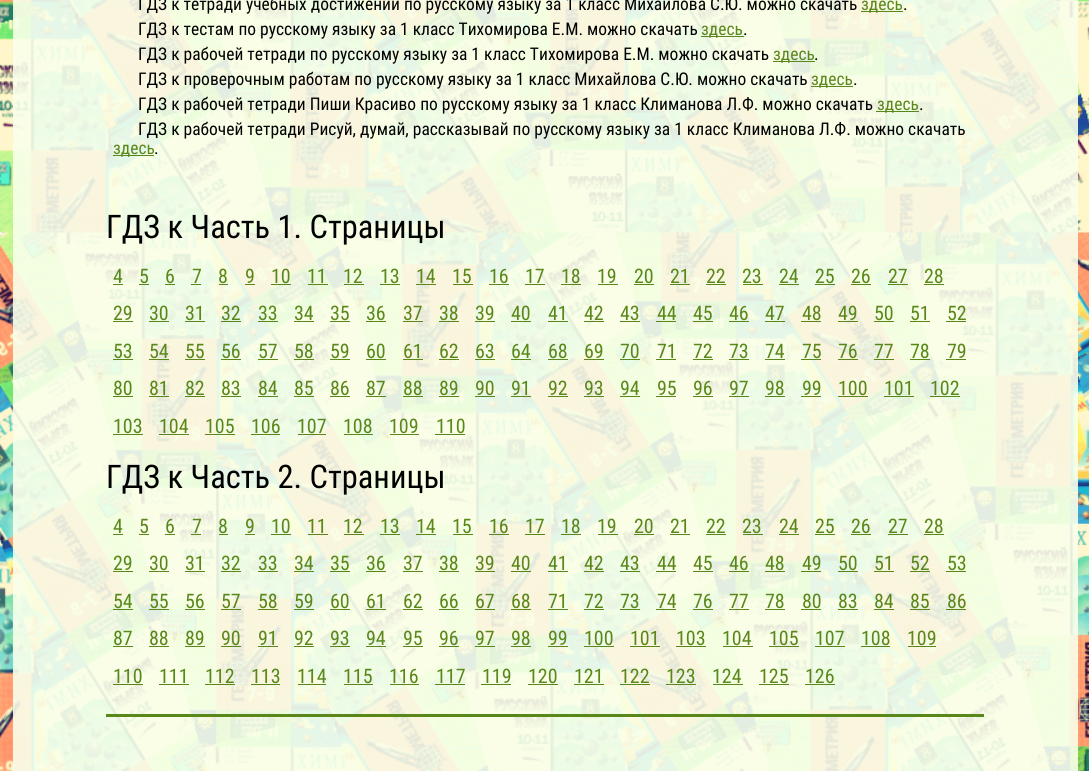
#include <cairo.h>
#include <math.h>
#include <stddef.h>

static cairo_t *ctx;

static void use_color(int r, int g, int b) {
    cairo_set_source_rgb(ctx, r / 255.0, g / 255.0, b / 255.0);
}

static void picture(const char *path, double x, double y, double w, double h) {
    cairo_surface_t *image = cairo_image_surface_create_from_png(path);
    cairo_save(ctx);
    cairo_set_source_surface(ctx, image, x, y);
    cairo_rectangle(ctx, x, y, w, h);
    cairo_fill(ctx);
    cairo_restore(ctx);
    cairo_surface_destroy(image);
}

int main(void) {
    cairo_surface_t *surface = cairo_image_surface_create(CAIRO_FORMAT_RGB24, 1089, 771);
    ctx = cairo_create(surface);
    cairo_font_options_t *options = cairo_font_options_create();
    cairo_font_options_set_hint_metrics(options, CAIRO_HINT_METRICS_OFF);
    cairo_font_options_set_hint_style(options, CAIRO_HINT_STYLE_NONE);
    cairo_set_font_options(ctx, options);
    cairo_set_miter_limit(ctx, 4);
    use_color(255, 255, 255);
    cairo_paint(ctx);
    picture("img1.png", 0, 0, 1089, 771);
    cairo_select_font_face(ctx, "Roboto Condensed", CAIRO_FONT_SLANT_NORMAL, CAIRO_FONT_WEIGHT_NORMAL);
    cairo_set_font_size(ctx, 17.5);
    use_color(0, 0, 0);
    cairo_move_to(ctx, 138, 10);
    cairo_show_text(ctx, "ГДЗ к тетради учебных достижений по русскому языку за 1 класс Михайлова С.Ю. можно скачать");
    use_color(89, 135, 26);
    cairo_rectangle(ctx, 861, 11, 42, 1);
    cairo_fill(ctx);
    cairo_move_to(ctx, 861, 10);
    cairo_show_text(ctx, "здесь");
    use_color(0, 0, 0);
    cairo_move_to(ctx, 903, 10);
    cairo_show_text(ctx, ".");
    cairo_move_to(ctx, 138, 35);
    cairo_show_text(ctx, "ГДЗ к тестам по русскому языку за 1 класс Тихомирова Е.М. можно скачать");
    use_color(89, 135, 26);
    cairo_rectangle(ctx, 701, 36, 43, 1);
    cairo_fill(ctx);
    cairo_move_to(ctx, 701, 35);
    cairo_show_text(ctx, "здесь");
    use_color(0, 0, 0);
    cairo_move_to(ctx, 743, 35);
    cairo_show_text(ctx, ".");
    cairo_move_to(ctx, 138, 60);
    cairo_show_text(ctx, "ГДЗ к рабочей тетради по русскому языку за 1 класс Тихомирова Е.М. можно скачать");
    use_color(89, 135, 26);
    cairo_rectangle(ctx, 773, 61, 42, 1);
    cairo_fill(ctx);
    cairo_move_to(ctx, 773, 60);
    cairo_show_text(ctx, "здесь");
    use_color(0, 0, 0);
    cairo_move_to(ctx, 814, 60);
    cairo_show_text(ctx, ".");
    cairo_move_to(ctx, 138, 85);
    cairo_show_text(ctx, "ГДЗ к проверочным работам по русскому языку за 1 класс Михайлова С.Ю. можно скачать");
    use_color(89, 135, 26);
    cairo_rectangle(ctx, 811, 86, 42, 1);
    cairo_fill(ctx);
    cairo_move_to(ctx, 811, 85);
    cairo_show_text(ctx, "здесь");
    use_color(0, 0, 0);
    cairo_move_to(ctx, 853, 85);
    cairo_show_text(ctx, ".");
    cairo_move_to(ctx, 138, 110);
    cairo_show_text(ctx, "ГДЗ к рабочей тетради Пиши Красиво по русскому языку за 1 класс Климанова Л.Ф. можно скачать");
    use_color(89, 135, 26);
    cairo_rectangle(ctx, 876, 111, 43, 1);
    cairo_fill(ctx);
    cairo_move_to(ctx, 877, 110);
    cairo_show_text(ctx, "здесь");
    use_color(0, 0, 0);
    cairo_move_to(ctx, 919, 110);
    cairo_show_text(ctx, ".");
    cairo_move_to(ctx, 138, 135);
    cairo_show_text(ctx, "ГДЗ к рабочей тетради Рисуй, думай, рассказывай по русскому языку за 1 класс Климанова Л.Ф. можно скачать");
    use_color(89, 135, 26);
    cairo_rectangle(ctx, 113, 155, 41, 1);
    cairo_fill(ctx);
    cairo_move_to(ctx, 113, 154);
    cairo_show_text(ctx, "здесь");
    use_color(0, 0, 0);
    cairo_move_to(ctx, 154, 154);
    cairo_show_text(ctx, ".");
    use_color(89, 135, 26);
    cairo_rectangle(ctx, 106, 714, 878, 3);
    cairo_fill(ctx);
    cairo_set_font_size(ctx, 32.5);
    use_color(0, 0, 0);
    cairo_move_to(ctx, 106, 238);
    cairo_show_text(ctx, "ГДЗ к Часть 1. Страницы");
    cairo_set_font_size(ctx, 20);
    use_color(89, 135, 26);
    cairo_move_to(ctx, 113, 283);
    cairo_show_text(ctx, "4");
    cairo_rectangle(ctx, 113, 284, 10, 1);
    cairo_fill(ctx);
    cairo_move_to(ctx, 139, 283);
    cairo_show_text(ctx, "5");
    cairo_rectangle(ctx, 139, 284, 10, 1);
    cairo_fill(ctx);
    cairo_move_to(ctx, 165, 283);
    cairo_show_text(ctx, "6");
    cairo_rectangle(ctx, 165, 284, 10, 1);
    cairo_fill(ctx);
    cairo_move_to(ctx, 192, 283);
    cairo_show_text(ctx, "7");
    cairo_rectangle(ctx, 191, 284, 10, 1);
    cairo_fill(ctx);
    cairo_move_to(ctx, 218, 283);
    cairo_show_text(ctx, "8");
    cairo_rectangle(ctx, 219, 284, 9, 1);
    cairo_fill(ctx);
    cairo_move_to(ctx, 245, 283);
    cairo_show_text(ctx, "9");
    cairo_rectangle(ctx, 245, 284, 10, 1);
    cairo_fill(ctx);
    cairo_move_to(ctx, 271, 283);
    cairo_show_text(ctx, "10");
    cairo_rectangle(ctx, 271, 284, 20, 1);
    cairo_fill(ctx);
    cairo_move_to(ctx, 307, 283);
    cairo_show_text(ctx, "11");
    cairo_rectangle(ctx, 308, 284, 20, 1);
    cairo_fill(ctx);
    cairo_move_to(ctx, 343, 283);
    cairo_show_text(ctx, "12");
    cairo_rectangle(ctx, 344, 284, 20, 1);
    cairo_fill(ctx);
    cairo_move_to(ctx, 380, 283);
    cairo_show_text(ctx, "13");
    cairo_rectangle(ctx, 380, 284, 20, 1);
    cairo_fill(ctx);
    cairo_move_to(ctx, 416, 283);
    cairo_show_text(ctx, "14");
    cairo_rectangle(ctx, 416, 284, 20, 1);
    cairo_fill(ctx);
    cairo_move_to(ctx, 452, 283);
    cairo_show_text(ctx, "15");
    cairo_rectangle(ctx, 453, 284, 20, 1);
    cairo_fill(ctx);
    cairo_move_to(ctx, 489, 283);
    cairo_show_text(ctx, "16");
    cairo_rectangle(ctx, 489, 284, 20, 1);
    cairo_fill(ctx);
    cairo_move_to(ctx, 525, 283);
    cairo_show_text(ctx, "17");
    cairo_rectangle(ctx, 525, 284, 20, 1);
    cairo_fill(ctx);
    cairo_move_to(ctx, 561, 283);
    cairo_show_text(ctx, "18");
    cairo_rectangle(ctx, 561, 284, 20, 1);
    cairo_fill(ctx);
    cairo_move_to(ctx, 597, 283);
    cairo_show_text(ctx, "19");
    cairo_rectangle(ctx, 598, 284, 20, 1);
    cairo_fill(ctx);
    cairo_move_to(ctx, 634, 283);
    cairo_show_text(ctx, "20");
    cairo_rectangle(ctx, 634, 284, 20, 1);
    cairo_fill(ctx);
    cairo_move_to(ctx, 670, 283);
    cairo_show_text(ctx, "21");
    cairo_rectangle(ctx, 670, 284, 20, 1);
    cairo_fill(ctx);
    cairo_move_to(ctx, 706, 283);
    cairo_show_text(ctx, "22");
    cairo_rectangle(ctx, 706, 284, 20, 1);
    cairo_fill(ctx);
    cairo_move_to(ctx, 742, 283);
    cairo_show_text(ctx, "23");
    cairo_rectangle(ctx, 743, 284, 20, 1);
    cairo_fill(ctx);
    cairo_move_to(ctx, 779, 283);
    cairo_show_text(ctx, "24");
    cairo_rectangle(ctx, 779, 284, 20, 1);
    cairo_fill(ctx);
    cairo_move_to(ctx, 815, 283);
    cairo_show_text(ctx, "25");
    cairo_rectangle(ctx, 815, 284, 20, 1);
    cairo_fill(ctx);
    cairo_move_to(ctx, 851, 283);
    cairo_show_text(ctx, "26");
    cairo_rectangle(ctx, 851, 284, 20, 1);
    cairo_fill(ctx);
    cairo_move_to(ctx, 888, 283);
    cairo_show_text(ctx, "27");
    cairo_rectangle(ctx, 888, 284, 20, 1);
    cairo_fill(ctx);
    cairo_move_to(ctx, 924, 283);
    cairo_show_text(ctx, "28");
    cairo_rectangle(ctx, 924, 284, 20, 1);
    cairo_fill(ctx);
    cairo_move_to(ctx, 113, 320);
    cairo_show_text(ctx, "29");
    cairo_rectangle(ctx, 113, 321, 20, 1);
    cairo_fill(ctx);
    cairo_move_to(ctx, 149, 320);
    cairo_show_text(ctx, "30");
    cairo_rectangle(ctx, 149, 321, 20, 1);
    cairo_fill(ctx);
    cairo_move_to(ctx, 185, 320);
    cairo_show_text(ctx, "31");
    cairo_rectangle(ctx, 185, 321, 20, 1);
    cairo_fill(ctx);
    cairo_move_to(ctx, 221, 320);
    cairo_show_text(ctx, "32");
    cairo_rectangle(ctx, 221, 321, 20, 1);
    cairo_fill(ctx);
    cairo_move_to(ctx, 258, 320);
    cairo_show_text(ctx, "33");
    cairo_rectangle(ctx, 258, 321, 20, 1);
    cairo_fill(ctx);
    cairo_move_to(ctx, 294, 320);
    cairo_show_text(ctx, "34");
    cairo_rectangle(ctx, 294, 321, 20, 1);
    cairo_fill(ctx);
    cairo_move_to(ctx, 330, 320);
    cairo_show_text(ctx, "35");
    cairo_rectangle(ctx, 330, 321, 20, 1);
    cairo_fill(ctx);
    cairo_move_to(ctx, 366, 320);
    cairo_show_text(ctx, "36");
    cairo_rectangle(ctx, 366, 321, 20, 1);
    cairo_fill(ctx);
    cairo_move_to(ctx, 403, 320);
    cairo_show_text(ctx, "37");
    cairo_rectangle(ctx, 403, 321, 20, 1);
    cairo_fill(ctx);
    cairo_move_to(ctx, 439, 320);
    cairo_show_text(ctx, "38");
    cairo_rectangle(ctx, 439, 321, 20, 1);
    cairo_fill(ctx);
    cairo_move_to(ctx, 475, 320);
    cairo_show_text(ctx, "39");
    cairo_rectangle(ctx, 475, 321, 20, 1);
    cairo_fill(ctx);
    cairo_move_to(ctx, 511, 320);
    cairo_show_text(ctx, "40");
    cairo_rectangle(ctx, 511, 321, 20, 1);
    cairo_fill(ctx);
    cairo_move_to(ctx, 548, 320);
    cairo_show_text(ctx, "41");
    cairo_rectangle(ctx, 548, 321, 20, 1);
    cairo_fill(ctx);
    cairo_move_to(ctx, 584, 320);
    cairo_show_text(ctx, "42");
    cairo_rectangle(ctx, 584, 321, 20, 1);
    cairo_fill(ctx);
    cairo_move_to(ctx, 620, 320);
    cairo_show_text(ctx, "43");
    cairo_rectangle(ctx, 620, 321, 20, 1);
    cairo_fill(ctx);
    cairo_move_to(ctx, 657, 320);
    cairo_show_text(ctx, "44");
    cairo_rectangle(ctx, 656, 321, 20, 1);
    cairo_fill(ctx);
    cairo_move_to(ctx, 693, 320);
    cairo_show_text(ctx, "45");
    cairo_rectangle(ctx, 693, 321, 20, 1);
    cairo_fill(ctx);
    cairo_move_to(ctx, 729, 320);
    cairo_show_text(ctx, "46");
    cairo_rectangle(ctx, 729, 321, 20, 1);
    cairo_fill(ctx);
    cairo_move_to(ctx, 765, 320);
    cairo_show_text(ctx, "47");
    cairo_rectangle(ctx, 765, 321, 20, 1);
    cairo_fill(ctx);
    cairo_move_to(ctx, 802, 320);
    cairo_show_text(ctx, "48");
    cairo_rectangle(ctx, 801, 321, 20, 1);
    cairo_fill(ctx);
    cairo_move_to(ctx, 838, 320);
    cairo_show_text(ctx, "49");
    cairo_rectangle(ctx, 838, 321, 20, 1);
    cairo_fill(ctx);
    cairo_move_to(ctx, 874, 320);
    cairo_show_text(ctx, "50");
    cairo_rectangle(ctx, 874, 321, 20, 1);
    cairo_fill(ctx);
    cairo_move_to(ctx, 910, 320);
    cairo_show_text(ctx, "51");
    cairo_rectangle(ctx, 910, 321, 20, 1);
    cairo_fill(ctx);
    cairo_move_to(ctx, 947, 320);
    cairo_show_text(ctx, "52");
    cairo_rectangle(ctx, 946, 321, 20, 1);
    cairo_fill(ctx);
    cairo_move_to(ctx, 113, 358);
    cairo_show_text(ctx, "53");
    cairo_rectangle(ctx, 113, 359, 20, 1);
    cairo_fill(ctx);
    cairo_move_to(ctx, 149, 358);
    cairo_show_text(ctx, "54");
    cairo_rectangle(ctx, 149, 359, 20, 1);
    cairo_fill(ctx);
    cairo_move_to(ctx, 185, 358);
    cairo_show_text(ctx, "55");
    cairo_rectangle(ctx, 185, 359, 20, 1);
    cairo_fill(ctx);
    cairo_move_to(ctx, 221, 358);
    cairo_show_text(ctx, "56");
    cairo_rectangle(ctx, 221, 359, 20, 1);
    cairo_fill(ctx);
    cairo_move_to(ctx, 258, 358);
    cairo_show_text(ctx, "57");
    cairo_rectangle(ctx, 258, 359, 20, 1);
    cairo_fill(ctx);
    cairo_move_to(ctx, 294, 358);
    cairo_show_text(ctx, "58");
    cairo_rectangle(ctx, 294, 359, 20, 1);
    cairo_fill(ctx);
    cairo_move_to(ctx, 330, 358);
    cairo_show_text(ctx, "59");
    cairo_rectangle(ctx, 330, 359, 20, 1);
    cairo_fill(ctx);
    cairo_move_to(ctx, 366, 358);
    cairo_show_text(ctx, "60");
    cairo_rectangle(ctx, 366, 359, 20, 1);
    cairo_fill(ctx);
    cairo_move_to(ctx, 403, 358);
    cairo_show_text(ctx, "61");
    cairo_rectangle(ctx, 403, 359, 20, 1);
    cairo_fill(ctx);
    cairo_move_to(ctx, 439, 358);
    cairo_show_text(ctx, "62");
    cairo_rectangle(ctx, 439, 359, 20, 1);
    cairo_fill(ctx);
    cairo_move_to(ctx, 475, 358);
    cairo_show_text(ctx, "63");
    cairo_rectangle(ctx, 475, 359, 20, 1);
    cairo_fill(ctx);
    cairo_move_to(ctx, 511, 358);
    cairo_show_text(ctx, "64");
    cairo_rectangle(ctx, 511, 359, 20, 1);
    cairo_fill(ctx);
    cairo_move_to(ctx, 548, 358);
    cairo_show_text(ctx, "68");
    cairo_rectangle(ctx, 548, 359, 20, 1);
    cairo_fill(ctx);
    cairo_move_to(ctx, 584, 358);
    cairo_show_text(ctx, "69");
    cairo_rectangle(ctx, 584, 359, 20, 1);
    cairo_fill(ctx);
    cairo_move_to(ctx, 620, 358);
    cairo_show_text(ctx, "70");
    cairo_rectangle(ctx, 620, 359, 20, 1);
    cairo_fill(ctx);
    cairo_move_to(ctx, 657, 358);
    cairo_show_text(ctx, "71");
    cairo_rectangle(ctx, 656, 359, 20, 1);
    cairo_fill(ctx);
    cairo_move_to(ctx, 693, 358);
    cairo_show_text(ctx, "72");
    cairo_rectangle(ctx, 693, 359, 20, 1);
    cairo_fill(ctx);
    cairo_move_to(ctx, 729, 358);
    cairo_show_text(ctx, "73");
    cairo_rectangle(ctx, 729, 359, 20, 1);
    cairo_fill(ctx);
    cairo_move_to(ctx, 765, 358);
    cairo_show_text(ctx, "74");
    cairo_rectangle(ctx, 765, 359, 20, 1);
    cairo_fill(ctx);
    cairo_move_to(ctx, 802, 358);
    cairo_show_text(ctx, "75");
    cairo_rectangle(ctx, 801, 359, 20, 1);
    cairo_fill(ctx);
    cairo_move_to(ctx, 838, 358);
    cairo_show_text(ctx, "76");
    cairo_rectangle(ctx, 838, 359, 20, 1);
    cairo_fill(ctx);
    cairo_move_to(ctx, 874, 358);
    cairo_show_text(ctx, "77");
    cairo_rectangle(ctx, 874, 359, 20, 1);
    cairo_fill(ctx);
    cairo_move_to(ctx, 910, 358);
    cairo_show_text(ctx, "78");
    cairo_rectangle(ctx, 910, 359, 20, 1);
    cairo_fill(ctx);
    cairo_move_to(ctx, 947, 358);
    cairo_show_text(ctx, "79");
    cairo_rectangle(ctx, 946, 359, 20, 1);
    cairo_fill(ctx);
    cairo_move_to(ctx, 113, 395);
    cairo_show_text(ctx, "80");
    cairo_rectangle(ctx, 113, 396, 20, 1);
    cairo_fill(ctx);
    cairo_move_to(ctx, 149, 395);
    cairo_show_text(ctx, "81");
    cairo_rectangle(ctx, 149, 396, 20, 1);
    cairo_fill(ctx);
    cairo_move_to(ctx, 185, 395);
    cairo_show_text(ctx, "82");
    cairo_rectangle(ctx, 185, 396, 20, 1);
    cairo_fill(ctx);
    cairo_move_to(ctx, 221, 395);
    cairo_show_text(ctx, "83");
    cairo_rectangle(ctx, 221, 396, 20, 1);
    cairo_fill(ctx);
    cairo_move_to(ctx, 258, 395);
    cairo_show_text(ctx, "84");
    cairo_rectangle(ctx, 258, 396, 20, 1);
    cairo_fill(ctx);
    cairo_move_to(ctx, 294, 395);
    cairo_show_text(ctx, "85");
    cairo_rectangle(ctx, 294, 396, 20, 1);
    cairo_fill(ctx);
    cairo_move_to(ctx, 330, 395);
    cairo_show_text(ctx, "86");
    cairo_rectangle(ctx, 330, 396, 20, 1);
    cairo_fill(ctx);
    cairo_move_to(ctx, 366, 395);
    cairo_show_text(ctx, "87");
    cairo_rectangle(ctx, 366, 396, 20, 1);
    cairo_fill(ctx);
    cairo_move_to(ctx, 403, 395);
    cairo_show_text(ctx, "88");
    cairo_rectangle(ctx, 403, 396, 20, 1);
    cairo_fill(ctx);
    cairo_move_to(ctx, 439, 395);
    cairo_show_text(ctx, "89");
    cairo_rectangle(ctx, 439, 396, 20, 1);
    cairo_fill(ctx);
    cairo_move_to(ctx, 475, 395);
    cairo_show_text(ctx, "90");
    cairo_rectangle(ctx, 475, 396, 20, 1);
    cairo_fill(ctx);
    cairo_move_to(ctx, 511, 395);
    cairo_show_text(ctx, "91");
    cairo_rectangle(ctx, 511, 396, 20, 1);
    cairo_fill(ctx);
    cairo_move_to(ctx, 548, 395);
    cairo_show_text(ctx, "92");
    cairo_rectangle(ctx, 548, 396, 20, 1);
    cairo_fill(ctx);
    cairo_move_to(ctx, 584, 395);
    cairo_show_text(ctx, "93");
    cairo_rectangle(ctx, 584, 396, 20, 1);
    cairo_fill(ctx);
    cairo_move_to(ctx, 620, 395);
    cairo_show_text(ctx, "94");
    cairo_rectangle(ctx, 620, 396, 20, 1);
    cairo_fill(ctx);
    cairo_move_to(ctx, 657, 395);
    cairo_show_text(ctx, "95");
    cairo_rectangle(ctx, 656, 396, 20, 1);
    cairo_fill(ctx);
    cairo_move_to(ctx, 693, 395);
    cairo_show_text(ctx, "96");
    cairo_rectangle(ctx, 693, 396, 20, 1);
    cairo_fill(ctx);
    cairo_move_to(ctx, 729, 395);
    cairo_show_text(ctx, "97");
    cairo_rectangle(ctx, 729, 396, 20, 1);
    cairo_fill(ctx);
    cairo_move_to(ctx, 765, 395);
    cairo_show_text(ctx, "98");
    cairo_rectangle(ctx, 765, 396, 20, 1);
    cairo_fill(ctx);
    cairo_move_to(ctx, 802, 395);
    cairo_show_text(ctx, "99");
    cairo_rectangle(ctx, 801, 396, 20, 1);
    cairo_fill(ctx);
    cairo_move_to(ctx, 838, 395);
    cairo_show_text(ctx, "100");
    cairo_rectangle(ctx, 838, 396, 30, 1);
    cairo_fill(ctx);
    cairo_move_to(ctx, 884, 395);
    cairo_show_text(ctx, "101");
    cairo_rectangle(ctx, 884, 396, 30, 1);
    cairo_fill(ctx);
    cairo_move_to(ctx, 930, 395);
    cairo_show_text(ctx, "102");
    cairo_rectangle(ctx, 930, 396, 30, 1);
    cairo_fill(ctx);
    cairo_move_to(ctx, 113, 433);
    cairo_show_text(ctx, "103");
    cairo_rectangle(ctx, 113, 434, 30, 1);
    cairo_fill(ctx);
    cairo_move_to(ctx, 159, 433);
    cairo_show_text(ctx, "104");
    cairo_rectangle(ctx, 159, 434, 30, 1);
    cairo_fill(ctx);
    cairo_move_to(ctx, 205, 433);
    cairo_show_text(ctx, "105");
    cairo_rectangle(ctx, 205, 434, 30, 1);
    cairo_fill(ctx);
    cairo_move_to(ctx, 251, 433);
    cairo_show_text(ctx, "106");
    cairo_rectangle(ctx, 251, 434, 29, 1);
    cairo_fill(ctx);
    cairo_move_to(ctx, 297, 433);
    cairo_show_text(ctx, "107");
    cairo_rectangle(ctx, 298, 434, 28, 1);
    cairo_fill(ctx);
    cairo_move_to(ctx, 343, 433);
    cairo_show_text(ctx, "108");
    cairo_rectangle(ctx, 344, 434, 29, 1);
    cairo_fill(ctx);
    cairo_move_to(ctx, 389, 433);
    cairo_show_text(ctx, "109");
    cairo_rectangle(ctx, 390, 434, 29, 1);
    cairo_fill(ctx);
    cairo_move_to(ctx, 436, 433);
    cairo_show_text(ctx, "110");
    cairo_rectangle(ctx, 435, 434, 30, 1);
    cairo_fill(ctx);
    cairo_set_font_size(ctx, 32.5);
    use_color(0, 0, 0);
    cairo_move_to(ctx, 106, 488);
    cairo_show_text(ctx, "ГДЗ к Часть 2. Страницы");
    cairo_set_font_size(ctx, 20);
    use_color(89, 135, 26);
    cairo_move_to(ctx, 113, 533);
    cairo_show_text(ctx, "4");
    cairo_rectangle(ctx, 113, 534, 10, 1);
    cairo_fill(ctx);
    cairo_move_to(ctx, 139, 533);
    cairo_show_text(ctx, "5");
    cairo_rectangle(ctx, 139, 534, 10, 1);
    cairo_fill(ctx);
    cairo_move_to(ctx, 165, 533);
    cairo_show_text(ctx, "6");
    cairo_rectangle(ctx, 165, 534, 10, 1);
    cairo_fill(ctx);
    cairo_move_to(ctx, 192, 533);
    cairo_show_text(ctx, "7");
    cairo_rectangle(ctx, 191, 534, 10, 1);
    cairo_fill(ctx);
    cairo_move_to(ctx, 218, 533);
    cairo_show_text(ctx, "8");
    cairo_rectangle(ctx, 219, 534, 9, 1);
    cairo_fill(ctx);
    cairo_move_to(ctx, 245, 533);
    cairo_show_text(ctx, "9");
    cairo_rectangle(ctx, 245, 534, 10, 1);
    cairo_fill(ctx);
    cairo_move_to(ctx, 271, 533);
    cairo_show_text(ctx, "10");
    cairo_rectangle(ctx, 271, 534, 20, 1);
    cairo_fill(ctx);
    cairo_move_to(ctx, 307, 533);
    cairo_show_text(ctx, "11");
    cairo_rectangle(ctx, 308, 534, 20, 1);
    cairo_fill(ctx);
    cairo_move_to(ctx, 343, 533);
    cairo_show_text(ctx, "12");
    cairo_rectangle(ctx, 344, 534, 20, 1);
    cairo_fill(ctx);
    cairo_move_to(ctx, 380, 533);
    cairo_show_text(ctx, "13");
    cairo_rectangle(ctx, 380, 534, 20, 1);
    cairo_fill(ctx);
    cairo_move_to(ctx, 416, 533);
    cairo_show_text(ctx, "14");
    cairo_rectangle(ctx, 416, 534, 20, 1);
    cairo_fill(ctx);
    cairo_move_to(ctx, 452, 533);
    cairo_show_text(ctx, "15");
    cairo_rectangle(ctx, 453, 534, 20, 1);
    cairo_fill(ctx);
    cairo_move_to(ctx, 489, 533);
    cairo_show_text(ctx, "16");
    cairo_rectangle(ctx, 489, 534, 20, 1);
    cairo_fill(ctx);
    cairo_move_to(ctx, 525, 533);
    cairo_show_text(ctx, "17");
    cairo_rectangle(ctx, 525, 534, 20, 1);
    cairo_fill(ctx);
    cairo_move_to(ctx, 561, 533);
    cairo_show_text(ctx, "18");
    cairo_rectangle(ctx, 561, 534, 20, 1);
    cairo_fill(ctx);
    cairo_move_to(ctx, 597, 533);
    cairo_show_text(ctx, "19");
    cairo_rectangle(ctx, 598, 534, 20, 1);
    cairo_fill(ctx);
    cairo_move_to(ctx, 634, 533);
    cairo_show_text(ctx, "20");
    cairo_rectangle(ctx, 634, 534, 20, 1);
    cairo_fill(ctx);
    cairo_move_to(ctx, 670, 533);
    cairo_show_text(ctx, "21");
    cairo_rectangle(ctx, 670, 534, 20, 1);
    cairo_fill(ctx);
    cairo_move_to(ctx, 706, 533);
    cairo_show_text(ctx, "22");
    cairo_rectangle(ctx, 706, 534, 20, 1);
    cairo_fill(ctx);
    cairo_move_to(ctx, 742, 533);
    cairo_show_text(ctx, "23");
    cairo_rectangle(ctx, 743, 534, 20, 1);
    cairo_fill(ctx);
    cairo_move_to(ctx, 779, 533);
    cairo_show_text(ctx, "24");
    cairo_rectangle(ctx, 779, 534, 20, 1);
    cairo_fill(ctx);
    cairo_move_to(ctx, 815, 533);
    cairo_show_text(ctx, "25");
    cairo_rectangle(ctx, 815, 534, 20, 1);
    cairo_fill(ctx);
    cairo_move_to(ctx, 851, 533);
    cairo_show_text(ctx, "26");
    cairo_rectangle(ctx, 851, 534, 20, 1);
    cairo_fill(ctx);
    cairo_move_to(ctx, 888, 533);
    cairo_show_text(ctx, "27");
    cairo_rectangle(ctx, 888, 534, 20, 1);
    cairo_fill(ctx);
    cairo_move_to(ctx, 924, 533);
    cairo_show_text(ctx, "28");
    cairo_rectangle(ctx, 924, 534, 20, 1);
    cairo_fill(ctx);
    cairo_move_to(ctx, 113, 570);
    cairo_show_text(ctx, "29");
    cairo_rectangle(ctx, 113, 571, 20, 1);
    cairo_fill(ctx);
    cairo_move_to(ctx, 149, 570);
    cairo_show_text(ctx, "30");
    cairo_rectangle(ctx, 149, 571, 20, 1);
    cairo_fill(ctx);
    cairo_move_to(ctx, 185, 570);
    cairo_show_text(ctx, "31");
    cairo_rectangle(ctx, 185, 571, 20, 1);
    cairo_fill(ctx);
    cairo_move_to(ctx, 221, 570);
    cairo_show_text(ctx, "32");
    cairo_rectangle(ctx, 221, 571, 20, 1);
    cairo_fill(ctx);
    cairo_move_to(ctx, 258, 570);
    cairo_show_text(ctx, "33");
    cairo_rectangle(ctx, 258, 571, 20, 1);
    cairo_fill(ctx);
    cairo_move_to(ctx, 294, 570);
    cairo_show_text(ctx, "34");
    cairo_rectangle(ctx, 294, 571, 20, 1);
    cairo_fill(ctx);
    cairo_move_to(ctx, 330, 570);
    cairo_show_text(ctx, "35");
    cairo_rectangle(ctx, 330, 571, 20, 1);
    cairo_fill(ctx);
    cairo_move_to(ctx, 366, 570);
    cairo_show_text(ctx, "36");
    cairo_rectangle(ctx, 366, 571, 20, 1);
    cairo_fill(ctx);
    cairo_move_to(ctx, 403, 570);
    cairo_show_text(ctx, "37");
    cairo_rectangle(ctx, 403, 571, 20, 1);
    cairo_fill(ctx);
    cairo_move_to(ctx, 439, 570);
    cairo_show_text(ctx, "38");
    cairo_rectangle(ctx, 439, 571, 20, 1);
    cairo_fill(ctx);
    cairo_move_to(ctx, 475, 570);
    cairo_show_text(ctx, "39");
    cairo_rectangle(ctx, 475, 571, 20, 1);
    cairo_fill(ctx);
    cairo_move_to(ctx, 511, 570);
    cairo_show_text(ctx, "40");
    cairo_rectangle(ctx, 511, 571, 20, 1);
    cairo_fill(ctx);
    cairo_move_to(ctx, 548, 570);
    cairo_show_text(ctx, "41");
    cairo_rectangle(ctx, 548, 571, 20, 1);
    cairo_fill(ctx);
    cairo_move_to(ctx, 584, 570);
    cairo_show_text(ctx, "42");
    cairo_rectangle(ctx, 584, 571, 20, 1);
    cairo_fill(ctx);
    cairo_move_to(ctx, 620, 570);
    cairo_show_text(ctx, "43");
    cairo_rectangle(ctx, 620, 571, 20, 1);
    cairo_fill(ctx);
    cairo_move_to(ctx, 657, 570);
    cairo_show_text(ctx, "44");
    cairo_rectangle(ctx, 656, 571, 20, 1);
    cairo_fill(ctx);
    cairo_move_to(ctx, 693, 570);
    cairo_show_text(ctx, "45");
    cairo_rectangle(ctx, 693, 571, 20, 1);
    cairo_fill(ctx);
    cairo_move_to(ctx, 729, 570);
    cairo_show_text(ctx, "46");
    cairo_rectangle(ctx, 729, 571, 20, 1);
    cairo_fill(ctx);
    cairo_move_to(ctx, 765, 570);
    cairo_show_text(ctx, "48");
    cairo_rectangle(ctx, 765, 571, 20, 1);
    cairo_fill(ctx);
    cairo_move_to(ctx, 802, 570);
    cairo_show_text(ctx, "49");
    cairo_rectangle(ctx, 801, 571, 20, 1);
    cairo_fill(ctx);
    cairo_move_to(ctx, 838, 570);
    cairo_show_text(ctx, "50");
    cairo_rectangle(ctx, 838, 571, 20, 1);
    cairo_fill(ctx);
    cairo_move_to(ctx, 874, 570);
    cairo_show_text(ctx, "51");
    cairo_rectangle(ctx, 874, 571, 20, 1);
    cairo_fill(ctx);
    cairo_move_to(ctx, 910, 570);
    cairo_show_text(ctx, "52");
    cairo_rectangle(ctx, 910, 571, 20, 1);
    cairo_fill(ctx);
    cairo_move_to(ctx, 947, 570);
    cairo_show_text(ctx, "53");
    cairo_rectangle(ctx, 946, 571, 20, 1);
    cairo_fill(ctx);
    cairo_move_to(ctx, 113, 608);
    cairo_show_text(ctx, "54");
    cairo_rectangle(ctx, 113, 609, 20, 1);
    cairo_fill(ctx);
    cairo_move_to(ctx, 149, 608);
    cairo_show_text(ctx, "55");
    cairo_rectangle(ctx, 149, 609, 20, 1);
    cairo_fill(ctx);
    cairo_move_to(ctx, 185, 608);
    cairo_show_text(ctx, "56");
    cairo_rectangle(ctx, 185, 609, 20, 1);
    cairo_fill(ctx);
    cairo_move_to(ctx, 221, 608);
    cairo_show_text(ctx, "57");
    cairo_rectangle(ctx, 221, 609, 20, 1);
    cairo_fill(ctx);
    cairo_move_to(ctx, 258, 608);
    cairo_show_text(ctx, "58");
    cairo_rectangle(ctx, 258, 609, 20, 1);
    cairo_fill(ctx);
    cairo_move_to(ctx, 294, 608);
    cairo_show_text(ctx, "59");
    cairo_rectangle(ctx, 294, 609, 20, 1);
    cairo_fill(ctx);
    cairo_move_to(ctx, 330, 608);
    cairo_show_text(ctx, "60");
    cairo_rectangle(ctx, 330, 609, 20, 1);
    cairo_fill(ctx);
    cairo_move_to(ctx, 366, 608);
    cairo_show_text(ctx, "61");
    cairo_rectangle(ctx, 366, 609, 20, 1);
    cairo_fill(ctx);
    cairo_move_to(ctx, 403, 608);
    cairo_show_text(ctx, "62");
    cairo_rectangle(ctx, 403, 609, 20, 1);
    cairo_fill(ctx);
    cairo_move_to(ctx, 439, 608);
    cairo_show_text(ctx, "66");
    cairo_rectangle(ctx, 439, 609, 20, 1);
    cairo_fill(ctx);
    cairo_move_to(ctx, 475, 608);
    cairo_show_text(ctx, "67");
    cairo_rectangle(ctx, 475, 609, 20, 1);
    cairo_fill(ctx);
    cairo_move_to(ctx, 511, 608);
    cairo_show_text(ctx, "68");
    cairo_rectangle(ctx, 511, 609, 20, 1);
    cairo_fill(ctx);
    cairo_move_to(ctx, 548, 608);
    cairo_show_text(ctx, "71");
    cairo_rectangle(ctx, 548, 609, 20, 1);
    cairo_fill(ctx);
    cairo_move_to(ctx, 584, 608);
    cairo_show_text(ctx, "72");
    cairo_rectangle(ctx, 584, 609, 20, 1);
    cairo_fill(ctx);
    cairo_move_to(ctx, 620, 608);
    cairo_show_text(ctx, "73");
    cairo_rectangle(ctx, 620, 609, 20, 1);
    cairo_fill(ctx);
    cairo_move_to(ctx, 657, 608);
    cairo_show_text(ctx, "74");
    cairo_rectangle(ctx, 656, 609, 20, 1);
    cairo_fill(ctx);
    cairo_move_to(ctx, 693, 608);
    cairo_show_text(ctx, "76");
    cairo_rectangle(ctx, 693, 609, 20, 1);
    cairo_fill(ctx);
    cairo_move_to(ctx, 729, 608);
    cairo_show_text(ctx, "77");
    cairo_rectangle(ctx, 729, 609, 20, 1);
    cairo_fill(ctx);
    cairo_move_to(ctx, 765, 608);
    cairo_show_text(ctx, "78");
    cairo_rectangle(ctx, 765, 609, 20, 1);
    cairo_fill(ctx);
    cairo_move_to(ctx, 802, 608);
    cairo_show_text(ctx, "80");
    cairo_rectangle(ctx, 801, 609, 20, 1);
    cairo_fill(ctx);
    cairo_move_to(ctx, 838, 608);
    cairo_show_text(ctx, "83");
    cairo_rectangle(ctx, 838, 609, 20, 1);
    cairo_fill(ctx);
    cairo_move_to(ctx, 874, 608);
    cairo_show_text(ctx, "84");
    cairo_rectangle(ctx, 874, 609, 20, 1);
    cairo_fill(ctx);
    cairo_move_to(ctx, 910, 608);
    cairo_show_text(ctx, "85");
    cairo_rectangle(ctx, 910, 609, 20, 1);
    cairo_fill(ctx);
    cairo_move_to(ctx, 947, 608);
    cairo_show_text(ctx, "86");
    cairo_rectangle(ctx, 946, 609, 20, 1);
    cairo_fill(ctx);
    cairo_move_to(ctx, 113, 645);
    cairo_show_text(ctx, "87");
    cairo_rectangle(ctx, 113, 646, 20, 1);
    cairo_fill(ctx);
    cairo_move_to(ctx, 149, 645);
    cairo_show_text(ctx, "88");
    cairo_rectangle(ctx, 149, 646, 20, 1);
    cairo_fill(ctx);
    cairo_move_to(ctx, 185, 645);
    cairo_show_text(ctx, "89");
    cairo_rectangle(ctx, 185, 646, 20, 1);
    cairo_fill(ctx);
    cairo_move_to(ctx, 221, 645);
    cairo_show_text(ctx, "90");
    cairo_rectangle(ctx, 221, 646, 20, 1);
    cairo_fill(ctx);
    cairo_move_to(ctx, 258, 645);
    cairo_show_text(ctx, "91");
    cairo_rectangle(ctx, 258, 646, 20, 1);
    cairo_fill(ctx);
    cairo_move_to(ctx, 294, 645);
    cairo_show_text(ctx, "92");
    cairo_rectangle(ctx, 294, 646, 20, 1);
    cairo_fill(ctx);
    cairo_move_to(ctx, 330, 645);
    cairo_show_text(ctx, "93");
    cairo_rectangle(ctx, 330, 646, 20, 1);
    cairo_fill(ctx);
    cairo_move_to(ctx, 366, 645);
    cairo_show_text(ctx, "94");
    cairo_rectangle(ctx, 366, 646, 20, 1);
    cairo_fill(ctx);
    cairo_move_to(ctx, 403, 645);
    cairo_show_text(ctx, "95");
    cairo_rectangle(ctx, 403, 646, 20, 1);
    cairo_fill(ctx);
    cairo_move_to(ctx, 439, 645);
    cairo_show_text(ctx, "96");
    cairo_rectangle(ctx, 439, 646, 20, 1);
    cairo_fill(ctx);
    cairo_move_to(ctx, 475, 645);
    cairo_show_text(ctx, "97");
    cairo_rectangle(ctx, 475, 646, 20, 1);
    cairo_fill(ctx);
    cairo_move_to(ctx, 511, 645);
    cairo_show_text(ctx, "98");
    cairo_rectangle(ctx, 511, 646, 20, 1);
    cairo_fill(ctx);
    cairo_move_to(ctx, 548, 645);
    cairo_show_text(ctx, "99");
    cairo_rectangle(ctx, 548, 646, 20, 1);
    cairo_fill(ctx);
    cairo_move_to(ctx, 584, 645);
    cairo_show_text(ctx, "100");
    cairo_rectangle(ctx, 584, 646, 30, 1);
    cairo_fill(ctx);
    cairo_move_to(ctx, 630, 645);
    cairo_show_text(ctx, "101");
    cairo_rectangle(ctx, 630, 646, 30, 1);
    cairo_fill(ctx);
    cairo_move_to(ctx, 676, 645);
    cairo_show_text(ctx, "103");
    cairo_rectangle(ctx, 676, 646, 30, 1);
    cairo_fill(ctx);
    cairo_move_to(ctx, 722, 645);
    cairo_show_text(ctx, "104");
    cairo_rectangle(ctx, 723, 646, 30, 1);
    cairo_fill(ctx);
    cairo_move_to(ctx, 769, 645);
    cairo_show_text(ctx, "105");
    cairo_rectangle(ctx, 769, 646, 30, 1);
    cairo_fill(ctx);
    cairo_move_to(ctx, 815, 645);
    cairo_show_text(ctx, "107");
    cairo_rectangle(ctx, 815, 646, 30, 1);
    cairo_fill(ctx);
    cairo_move_to(ctx, 861, 645);
    cairo_show_text(ctx, "108");
    cairo_rectangle(ctx, 861, 646, 29, 1);
    cairo_fill(ctx);
    cairo_move_to(ctx, 907, 645);
    cairo_show_text(ctx, "109");
    cairo_rectangle(ctx, 908, 646, 28, 1);
    cairo_fill(ctx);
    cairo_move_to(ctx, 113, 683);
    cairo_show_text(ctx, "110");
    cairo_rectangle(ctx, 113, 684, 30, 1);
    cairo_fill(ctx);
    cairo_move_to(ctx, 159, 683);
    cairo_show_text(ctx, "111");
    cairo_rectangle(ctx, 159, 684, 30, 1);
    cairo_fill(ctx);
    cairo_move_to(ctx, 205, 683);
    cairo_show_text(ctx, "112");
    cairo_rectangle(ctx, 205, 684, 30, 1);
    cairo_fill(ctx);
    cairo_move_to(ctx, 251, 683);
    cairo_show_text(ctx, "113");
    cairo_rectangle(ctx, 251, 684, 29, 1);
    cairo_fill(ctx);
    cairo_move_to(ctx, 297, 683);
    cairo_show_text(ctx, "114");
    cairo_rectangle(ctx, 298, 684, 28, 1);
    cairo_fill(ctx);
    cairo_move_to(ctx, 343, 683);
    cairo_show_text(ctx, "115");
    cairo_rectangle(ctx, 344, 684, 29, 1);
    cairo_fill(ctx);
    cairo_move_to(ctx, 389, 683);
    cairo_show_text(ctx, "116");
    cairo_rectangle(ctx, 390, 684, 29, 1);
    cairo_fill(ctx);
    cairo_move_to(ctx, 436, 683);
    cairo_show_text(ctx, "117");
    cairo_rectangle(ctx, 435, 684, 30, 1);
    cairo_fill(ctx);
    cairo_move_to(ctx, 482, 683);
    cairo_show_text(ctx, "119");
    cairo_rectangle(ctx, 481, 684, 30, 1);
    cairo_fill(ctx);
    cairo_move_to(ctx, 528, 683);
    cairo_show_text(ctx, "120");
    cairo_rectangle(ctx, 528, 684, 30, 1);
    cairo_fill(ctx);
    cairo_move_to(ctx, 574, 683);
    cairo_show_text(ctx, "121");
    cairo_rectangle(ctx, 574, 684, 30, 1);
    cairo_fill(ctx);
    cairo_move_to(ctx, 620, 683);
    cairo_show_text(ctx, "122");
    cairo_rectangle(ctx, 620, 684, 30, 1);
    cairo_fill(ctx);
    cairo_move_to(ctx, 666, 683);
    cairo_show_text(ctx, "123");
    cairo_rectangle(ctx, 666, 684, 30, 1);
    cairo_fill(ctx);
    cairo_move_to(ctx, 712, 683);
    cairo_show_text(ctx, "124");
    cairo_rectangle(ctx, 713, 684, 30, 1);
    cairo_fill(ctx);
    cairo_move_to(ctx, 759, 683);
    cairo_show_text(ctx, "125");
    cairo_rectangle(ctx, 759, 684, 30, 1);
    cairo_fill(ctx);
    cairo_move_to(ctx, 805, 683);
    cairo_show_text(ctx, "126");
    cairo_rectangle(ctx, 805, 684, 30, 1);
    cairo_fill(ctx);
    cairo_surface_write_to_png(surface, "result.png");
    cairo_font_options_destroy(options);
    cairo_destroy(ctx);
    cairo_surface_destroy(surface);
    return 0;
}
